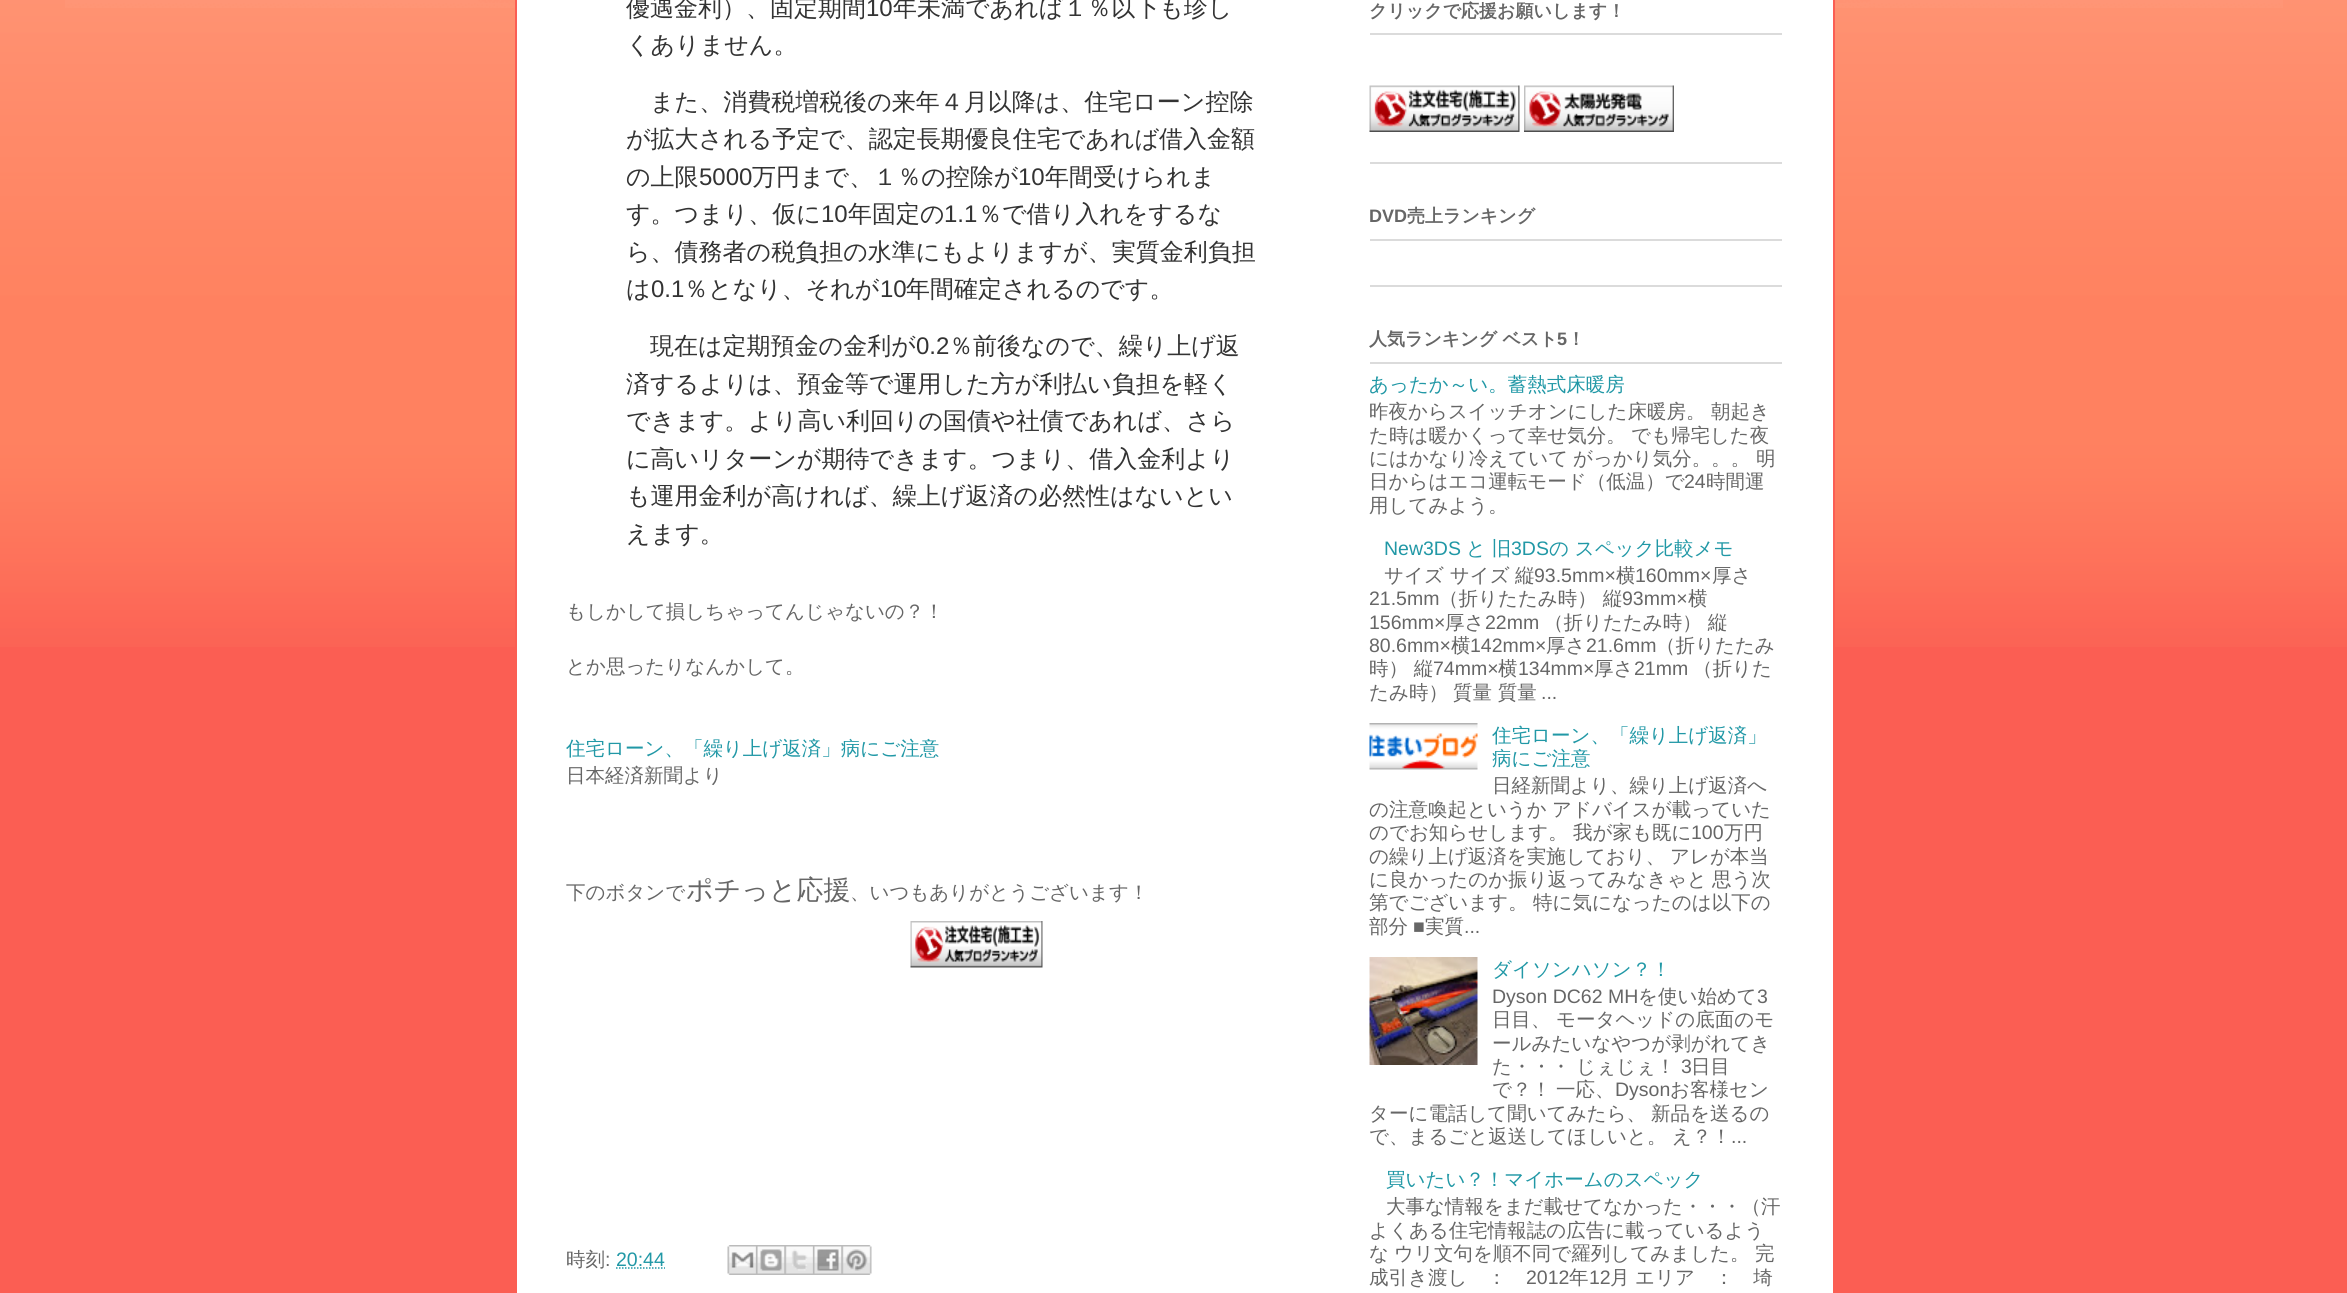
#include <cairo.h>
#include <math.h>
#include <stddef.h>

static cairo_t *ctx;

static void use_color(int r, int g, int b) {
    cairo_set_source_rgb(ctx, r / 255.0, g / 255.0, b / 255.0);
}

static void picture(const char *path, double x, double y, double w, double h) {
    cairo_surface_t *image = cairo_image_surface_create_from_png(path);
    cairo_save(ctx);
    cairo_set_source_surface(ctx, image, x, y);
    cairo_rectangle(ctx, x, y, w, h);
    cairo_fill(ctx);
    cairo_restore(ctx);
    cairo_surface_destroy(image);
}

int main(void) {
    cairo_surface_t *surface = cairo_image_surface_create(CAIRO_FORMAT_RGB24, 2347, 1293);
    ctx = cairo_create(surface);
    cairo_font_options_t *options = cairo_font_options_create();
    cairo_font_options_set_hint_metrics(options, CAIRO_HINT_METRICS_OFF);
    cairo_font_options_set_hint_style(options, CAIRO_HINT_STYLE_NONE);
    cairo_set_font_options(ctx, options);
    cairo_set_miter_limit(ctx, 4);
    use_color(251, 94, 83);
    cairo_paint(ctx);
    picture("img1.png", 0, 0, 2347, 647);
    picture("img2.png", 65, 0, 450, 8);
    use_color(255, 255, 255);
    cairo_rectangle(ctx, 517, 0, 1316, 1293);
    cairo_fill(ctx);
    use_color(251, 94, 83);
    cairo_rectangle(ctx, 1833, 0, 2, 647);
    cairo_fill(ctx);
    cairo_rectangle(ctx, 515, 0, 2, 647);
    cairo_fill(ctx);
    picture("img3.png", 1835, 0, 448, 8);
    cairo_select_font_face(ctx, "WenQuanYi Zen Hei Medium", CAIRO_FONT_SLANT_NORMAL, CAIRO_FONT_WEIGHT_NORMAL);
    cairo_set_font_size(ctx, 24);
    use_color(51, 51, 51);
    cairo_move_to(ctx, 626, 16);
    cairo_show_text(ctx, "優遇金利）、固定期間");
    cairo_select_font_face(ctx, "Liberation Sans", CAIRO_FONT_SLANT_NORMAL, CAIRO_FONT_WEIGHT_NORMAL);
    cairo_move_to(ctx, 866, 16);
    cairo_show_text(ctx, "10");
    cairo_select_font_face(ctx, "WenQuanYi Zen Hei Medium", CAIRO_FONT_SLANT_NORMAL, CAIRO_FONT_WEIGHT_NORMAL);
    cairo_move_to(ctx, 893, 16);
    cairo_show_text(ctx, "年未満であれば１％以下も珍し");
    cairo_move_to(ctx, 626, 53);
    cairo_show_text(ctx, "くありません。");
    cairo_move_to(ctx, 650, 110);
    cairo_show_text(ctx, "また、消費税増税後の来年４月以降は、住宅ローン控除");
    cairo_move_to(ctx, 626, 147);
    cairo_show_text(ctx, "が拡大される予定で、認定長期優良住宅であれば借入金額");
    cairo_move_to(ctx, 626, 185);
    cairo_show_text(ctx, "の上限");
    cairo_select_font_face(ctx, "Liberation Sans", CAIRO_FONT_SLANT_NORMAL, CAIRO_FONT_WEIGHT_NORMAL);
    cairo_move_to(ctx, 699, 185);
    cairo_show_text(ctx, "5000");
    cairo_select_font_face(ctx, "WenQuanYi Zen Hei Medium", CAIRO_FONT_SLANT_NORMAL, CAIRO_FONT_WEIGHT_NORMAL);
    cairo_move_to(ctx, 752, 185);
    cairo_show_text(ctx, "万円まで、１％の控除が");
    cairo_select_font_face(ctx, "Liberation Sans", CAIRO_FONT_SLANT_NORMAL, CAIRO_FONT_WEIGHT_NORMAL);
    cairo_move_to(ctx, 1018, 185);
    cairo_show_text(ctx, "10");
    cairo_select_font_face(ctx, "WenQuanYi Zen Hei Medium", CAIRO_FONT_SLANT_NORMAL, CAIRO_FONT_WEIGHT_NORMAL);
    cairo_move_to(ctx, 1045, 185);
    cairo_show_text(ctx, "年間受けられま");
    cairo_move_to(ctx, 626, 222);
    cairo_show_text(ctx, "す。つまり、仮に");
    cairo_select_font_face(ctx, "Liberation Sans", CAIRO_FONT_SLANT_NORMAL, CAIRO_FONT_WEIGHT_NORMAL);
    cairo_move_to(ctx, 821, 222);
    cairo_show_text(ctx, "10");
    cairo_select_font_face(ctx, "WenQuanYi Zen Hei Medium", CAIRO_FONT_SLANT_NORMAL, CAIRO_FONT_WEIGHT_NORMAL);
    cairo_move_to(ctx, 848, 222);
    cairo_show_text(ctx, "年固定の");
    cairo_select_font_face(ctx, "Liberation Sans", CAIRO_FONT_SLANT_NORMAL, CAIRO_FONT_WEIGHT_NORMAL);
    cairo_move_to(ctx, 944, 222);
    cairo_show_text(ctx, "1.1");
    cairo_select_font_face(ctx, "WenQuanYi Zen Hei Medium", CAIRO_FONT_SLANT_NORMAL, CAIRO_FONT_WEIGHT_NORMAL);
    cairo_move_to(ctx, 978, 222);
    cairo_show_text(ctx, "％で借り入れをするな");
    cairo_move_to(ctx, 626, 260);
    cairo_show_text(ctx, "ら、債務者の税負担の水準にもよりますが、実質金利負担");
    cairo_move_to(ctx, 626, 297);
    cairo_show_text(ctx, "は");
    cairo_select_font_face(ctx, "Liberation Sans", CAIRO_FONT_SLANT_NORMAL, CAIRO_FONT_WEIGHT_NORMAL);
    cairo_move_to(ctx, 651, 297);
    cairo_show_text(ctx, "0.1");
    cairo_select_font_face(ctx, "WenQuanYi Zen Hei Medium", CAIRO_FONT_SLANT_NORMAL, CAIRO_FONT_WEIGHT_NORMAL);
    cairo_move_to(ctx, 684, 297);
    cairo_show_text(ctx, "％となり、それが");
    cairo_select_font_face(ctx, "Liberation Sans", CAIRO_FONT_SLANT_NORMAL, CAIRO_FONT_WEIGHT_NORMAL);
    cairo_move_to(ctx, 880, 297);
    cairo_show_text(ctx, "10");
    cairo_select_font_face(ctx, "WenQuanYi Zen Hei Medium", CAIRO_FONT_SLANT_NORMAL, CAIRO_FONT_WEIGHT_NORMAL);
    cairo_move_to(ctx, 906, 297);
    cairo_show_text(ctx, "年間確定されるのです。");
    cairo_move_to(ctx, 650, 354);
    cairo_show_text(ctx, "現在は定期預金の金利が");
    cairo_select_font_face(ctx, "Liberation Sans", CAIRO_FONT_SLANT_NORMAL, CAIRO_FONT_WEIGHT_NORMAL);
    cairo_move_to(ctx, 916, 354);
    cairo_show_text(ctx, "0.2");
    cairo_select_font_face(ctx, "WenQuanYi Zen Hei Medium", CAIRO_FONT_SLANT_NORMAL, CAIRO_FONT_WEIGHT_NORMAL);
    cairo_move_to(ctx, 949, 354);
    cairo_show_text(ctx, "％前後なので、繰り上げ返");
    cairo_move_to(ctx, 626, 392);
    cairo_show_text(ctx, "済するよりは、預金等で運用した方が利払い負担を軽く");
    cairo_move_to(ctx, 626, 429);
    cairo_show_text(ctx, "できます。より高い利回りの国債や社債であれば、さら");
    cairo_move_to(ctx, 626, 467);
    cairo_show_text(ctx, "に高いリターンが期待できます。つまり、借入金利より");
    cairo_move_to(ctx, 626, 504);
    cairo_show_text(ctx, "も運用金利が高ければ、繰上げ返済の必然性はないとい");
    cairo_move_to(ctx, 626, 542);
    cairo_show_text(ctx, "えます。");
    cairo_set_font_size(ctx, 19.5);
    use_color(102, 102, 102);
    cairo_move_to(ctx, 566, 618);
    cairo_show_text(ctx, "もしかして損しちゃってんじゃないの？！");
    cairo_move_to(ctx, 566, 673);
    cairo_show_text(ctx, "とか思ったりなんかして。");
    use_color(33, 152, 166);
    cairo_move_to(ctx, 566, 755);
    cairo_show_text(ctx, "住宅ローン、「繰り上げ返済」病にご注意");
    use_color(102, 102, 102);
    cairo_move_to(ctx, 566, 782);
    cairo_show_text(ctx, "日本経済新聞より");
    cairo_move_to(ctx, 566, 899);
    cairo_show_text(ctx, "下のボタンで");
    cairo_set_font_size(ctx, 27);
    cairo_move_to(ctx, 686, 899);
    cairo_show_text(ctx, "ポチっと応援");
    cairo_set_font_size(ctx, 19.5);
    cairo_move_to(ctx, 850, 899);
    cairo_show_text(ctx, "、いつもありがとうございます！");
    picture("img4.png", 910, 921, 133, 47);
    cairo_move_to(ctx, 566, 1266);
    cairo_show_text(ctx, "時刻");
    cairo_select_font_face(ctx, "Liberation Sans", CAIRO_FONT_SLANT_NORMAL, CAIRO_FONT_WEIGHT_NORMAL);
    cairo_move_to(ctx, 605, 1266);
    cairo_show_text(ctx, ":");
    use_color(33, 152, 166);
    cairo_move_to(ctx, 616, 1266);
    cairo_show_text(ctx, "20:44");
    cairo_new_path(ctx);
    cairo_move_to(ctx, 616, 1268);
    cairo_line_to(ctx, 665, 1268);
    cairo_set_line_width(ctx, 1.5);
    cairo_set_dash(ctx, (double[]){1.5, 1.5}, 2, 0);
    cairo_stroke(ctx);
    picture("img5.png", 727, 1245, 29, 30);
    picture("img6.png", 756, 1245, 29, 30);
    picture("img7.png", 784, 1245, 29, 30);
    picture("img8.png", 813, 1245, 29, 30);
    picture("img9.png", 841, 1245, 31, 30);
    use_color(219, 219, 219);
    cairo_rectangle(ctx, 1370, 162, 412, 2);
    cairo_fill(ctx);
    cairo_rectangle(ctx, 1370, 33, 412, 2);
    cairo_fill(ctx);
    cairo_select_font_face(ctx, "WenQuanYi Zen Hei", CAIRO_FONT_SLANT_NORMAL, CAIRO_FONT_WEIGHT_BOLD);
    cairo_set_font_size(ctx, 18);
    use_color(102, 102, 102);
    cairo_move_to(ctx, 1369, 17);
    cairo_show_text(ctx, "クリックで応援お願いします！");
    picture("img10.png", 1369, 85, 151, 47);
    picture("img11.png", 1524, 85, 150, 47);
    use_color(219, 219, 219);
    cairo_rectangle(ctx, 1370, 285, 412, 2);
    cairo_fill(ctx);
    cairo_rectangle(ctx, 1370, 239, 412, 2);
    cairo_fill(ctx);
    cairo_select_font_face(ctx, "Liberation Sans", CAIRO_FONT_SLANT_NORMAL, CAIRO_FONT_WEIGHT_BOLD);
    use_color(102, 102, 102);
    cairo_move_to(ctx, 1369, 222);
    cairo_show_text(ctx, "DVD");
    cairo_select_font_face(ctx, "WenQuanYi Zen Hei", CAIRO_FONT_SLANT_NORMAL, CAIRO_FONT_WEIGHT_BOLD);
    cairo_move_to(ctx, 1407, 222);
    cairo_show_text(ctx, "売上ランキング");
    use_color(219, 219, 219);
    cairo_rectangle(ctx, 1370, 362, 412, 2);
    cairo_fill(ctx);
    use_color(102, 102, 102);
    cairo_move_to(ctx, 1369, 345);
    cairo_show_text(ctx, "人気ランキング ベスト");
    cairo_select_font_face(ctx, "Liberation Sans", CAIRO_FONT_SLANT_NORMAL, CAIRO_FONT_WEIGHT_BOLD);
    cairo_move_to(ctx, 1557, 345);
    cairo_show_text(ctx, "5");
    cairo_select_font_face(ctx, "WenQuanYi Zen Hei", CAIRO_FONT_SLANT_NORMAL, CAIRO_FONT_WEIGHT_BOLD);
    cairo_move_to(ctx, 1567, 345);
    cairo_show_text(ctx, "！");
    cairo_select_font_face(ctx, "WenQuanYi Zen Hei Medium", CAIRO_FONT_SLANT_NORMAL, CAIRO_FONT_WEIGHT_NORMAL);
    cairo_set_font_size(ctx, 19.5);
    use_color(33, 152, 166);
    cairo_move_to(ctx, 1369, 391);
    cairo_show_text(ctx, "あったか～い。蓄熱式床暖房");
    use_color(102, 102, 102);
    cairo_move_to(ctx, 1369, 418);
    cairo_show_text(ctx, "昨夜からスイッチオンにした床暖房。");
    cairo_move_to(ctx, 1711, 418);
    cairo_show_text(ctx, "朝起き");
    cairo_move_to(ctx, 1369, 442);
    cairo_show_text(ctx, "た時は暖かくって幸せ気分。");
    cairo_move_to(ctx, 1631, 442);
    cairo_show_text(ctx, "でも帰宅した夜");
    cairo_move_to(ctx, 1369, 465);
    cairo_show_text(ctx, "にはかなり冷えていて");
    cairo_move_to(ctx, 1573, 465);
    cairo_show_text(ctx, "がっかり気分。。。");
    cairo_move_to(ctx, 1756, 465);
    cairo_show_text(ctx, "明");
    cairo_move_to(ctx, 1369, 488);
    cairo_show_text(ctx, "日からはエコ運転モード（低温）で");
    cairo_select_font_face(ctx, "Liberation Sans", CAIRO_FONT_SLANT_NORMAL, CAIRO_FONT_WEIGHT_NORMAL);
    cairo_move_to(ctx, 1684, 488);
    cairo_show_text(ctx, "24");
    cairo_select_font_face(ctx, "WenQuanYi Zen Hei Medium", CAIRO_FONT_SLANT_NORMAL, CAIRO_FONT_WEIGHT_NORMAL);
    cairo_move_to(ctx, 1706, 488);
    cairo_show_text(ctx, "時間運");
    cairo_move_to(ctx, 1369, 512);
    cairo_show_text(ctx, "用してみよう。");
    cairo_select_font_face(ctx, "Liberation Sans", CAIRO_FONT_SLANT_NORMAL, CAIRO_FONT_WEIGHT_NORMAL);
    use_color(33, 152, 166);
    cairo_move_to(ctx, 1384, 555);
    cairo_show_text(ctx, "New3DS");
    cairo_select_font_face(ctx, "WenQuanYi Zen Hei Medium", CAIRO_FONT_SLANT_NORMAL, CAIRO_FONT_WEIGHT_NORMAL);
    cairo_move_to(ctx, 1466, 555);
    cairo_show_text(ctx, "と 旧");
    cairo_select_font_face(ctx, "Liberation Sans", CAIRO_FONT_SLANT_NORMAL, CAIRO_FONT_WEIGHT_NORMAL);
    cairo_move_to(ctx, 1511, 555);
    cairo_show_text(ctx, "3DS");
    cairo_select_font_face(ctx, "WenQuanYi Zen Hei Medium", CAIRO_FONT_SLANT_NORMAL, CAIRO_FONT_WEIGHT_NORMAL);
    cairo_move_to(ctx, 1549, 555);
    cairo_show_text(ctx, "の スペック比較メモ");
    use_color(102, 102, 102);
    cairo_move_to(ctx, 1384, 582);
    cairo_show_text(ctx, "サイズ サイズ");
    cairo_move_to(ctx, 1515, 582);
    cairo_show_text(ctx, "縦");
    cairo_select_font_face(ctx, "Liberation Sans", CAIRO_FONT_SLANT_NORMAL, CAIRO_FONT_WEIGHT_NORMAL);
    cairo_move_to(ctx, 1534, 582);
    cairo_show_text(ctx, "93.5mm×");
    cairo_select_font_face(ctx, "WenQuanYi Zen Hei Medium", CAIRO_FONT_SLANT_NORMAL, CAIRO_FONT_WEIGHT_NORMAL);
    cairo_move_to(ctx, 1616, 582);
    cairo_show_text(ctx, "横");
    cairo_select_font_face(ctx, "Liberation Sans", CAIRO_FONT_SLANT_NORMAL, CAIRO_FONT_WEIGHT_NORMAL);
    cairo_move_to(ctx, 1635, 582);
    cairo_show_text(ctx, "160mm×");
    cairo_select_font_face(ctx, "WenQuanYi Zen Hei Medium", CAIRO_FONT_SLANT_NORMAL, CAIRO_FONT_WEIGHT_NORMAL);
    cairo_move_to(ctx, 1712, 582);
    cairo_show_text(ctx, "厚さ");
    cairo_select_font_face(ctx, "Liberation Sans", CAIRO_FONT_SLANT_NORMAL, CAIRO_FONT_WEIGHT_NORMAL);
    cairo_move_to(ctx, 1369, 605);
    cairo_show_text(ctx, "21.5mm");
    cairo_select_font_face(ctx, "WenQuanYi Zen Hei Medium", CAIRO_FONT_SLANT_NORMAL, CAIRO_FONT_WEIGHT_NORMAL);
    cairo_move_to(ctx, 1439, 605);
    cairo_show_text(ctx, "（折りたたみ時） 縦");
    cairo_select_font_face(ctx, "Liberation Sans", CAIRO_FONT_SLANT_NORMAL, CAIRO_FONT_WEIGHT_NORMAL);
    cairo_move_to(ctx, 1622, 605);
    cairo_show_text(ctx, "93mm×");
    cairo_select_font_face(ctx, "WenQuanYi Zen Hei Medium", CAIRO_FONT_SLANT_NORMAL, CAIRO_FONT_WEIGHT_NORMAL);
    cairo_move_to(ctx, 1688, 605);
    cairo_show_text(ctx, "横");
    cairo_select_font_face(ctx, "Liberation Sans", CAIRO_FONT_SLANT_NORMAL, CAIRO_FONT_WEIGHT_NORMAL);
    cairo_move_to(ctx, 1369, 629);
    cairo_show_text(ctx, "156mm×");
    cairo_select_font_face(ctx, "WenQuanYi Zen Hei Medium", CAIRO_FONT_SLANT_NORMAL, CAIRO_FONT_WEIGHT_NORMAL);
    cairo_move_to(ctx, 1445, 629);
    cairo_show_text(ctx, "厚さ");
    cairo_select_font_face(ctx, "Liberation Sans", CAIRO_FONT_SLANT_NORMAL, CAIRO_FONT_WEIGHT_NORMAL);
    cairo_move_to(ctx, 1485, 629);
    cairo_show_text(ctx, "22mm");
    cairo_select_font_face(ctx, "WenQuanYi Zen Hei Medium", CAIRO_FONT_SLANT_NORMAL, CAIRO_FONT_WEIGHT_NORMAL);
    cairo_move_to(ctx, 1544, 629);
    cairo_show_text(ctx, "（折りたたみ時） 縦");
    cairo_select_font_face(ctx, "Liberation Sans", CAIRO_FONT_SLANT_NORMAL, CAIRO_FONT_WEIGHT_NORMAL);
    cairo_move_to(ctx, 1369, 652);
    cairo_show_text(ctx, "80.6mm×");
    cairo_select_font_face(ctx, "WenQuanYi Zen Hei Medium", CAIRO_FONT_SLANT_NORMAL, CAIRO_FONT_WEIGHT_NORMAL);
    cairo_move_to(ctx, 1451, 652);
    cairo_show_text(ctx, "横");
    cairo_select_font_face(ctx, "Liberation Sans", CAIRO_FONT_SLANT_NORMAL, CAIRO_FONT_WEIGHT_NORMAL);
    cairo_move_to(ctx, 1470, 652);
    cairo_show_text(ctx, "142mm×");
    cairo_select_font_face(ctx, "WenQuanYi Zen Hei Medium", CAIRO_FONT_SLANT_NORMAL, CAIRO_FONT_WEIGHT_NORMAL);
    cairo_move_to(ctx, 1546, 652);
    cairo_show_text(ctx, "厚さ");
    cairo_select_font_face(ctx, "Liberation Sans", CAIRO_FONT_SLANT_NORMAL, CAIRO_FONT_WEIGHT_NORMAL);
    cairo_move_to(ctx, 1586, 652);
    cairo_show_text(ctx, "21.6mm");
    cairo_select_font_face(ctx, "WenQuanYi Zen Hei Medium", CAIRO_FONT_SLANT_NORMAL, CAIRO_FONT_WEIGHT_NORMAL);
    cairo_move_to(ctx, 1656, 652);
    cairo_show_text(ctx, "（折りたたみ");
    cairo_move_to(ctx, 1369, 675);
    cairo_show_text(ctx, "時） 縦");
    cairo_select_font_face(ctx, "Liberation Sans", CAIRO_FONT_SLANT_NORMAL, CAIRO_FONT_WEIGHT_NORMAL);
    cairo_move_to(ctx, 1433, 675);
    cairo_show_text(ctx, "74mm×");
    cairo_select_font_face(ctx, "WenQuanYi Zen Hei Medium", CAIRO_FONT_SLANT_NORMAL, CAIRO_FONT_WEIGHT_NORMAL);
    cairo_move_to(ctx, 1498, 675);
    cairo_show_text(ctx, "横");
    cairo_select_font_face(ctx, "Liberation Sans", CAIRO_FONT_SLANT_NORMAL, CAIRO_FONT_WEIGHT_NORMAL);
    cairo_move_to(ctx, 1518, 675);
    cairo_show_text(ctx, "134mm×");
    cairo_select_font_face(ctx, "WenQuanYi Zen Hei Medium", CAIRO_FONT_SLANT_NORMAL, CAIRO_FONT_WEIGHT_NORMAL);
    cairo_move_to(ctx, 1594, 675);
    cairo_show_text(ctx, "厚さ");
    cairo_select_font_face(ctx, "Liberation Sans", CAIRO_FONT_SLANT_NORMAL, CAIRO_FONT_WEIGHT_NORMAL);
    cairo_move_to(ctx, 1634, 675);
    cairo_show_text(ctx, "21mm");
    cairo_select_font_face(ctx, "WenQuanYi Zen Hei Medium", CAIRO_FONT_SLANT_NORMAL, CAIRO_FONT_WEIGHT_NORMAL);
    cairo_move_to(ctx, 1693, 675);
    cairo_show_text(ctx, "（折りた");
    cairo_move_to(ctx, 1369, 699);
    cairo_show_text(ctx, "たみ時）");
    cairo_move_to(ctx, 1453, 699);
    cairo_show_text(ctx, "質量 質量");
    cairo_select_font_face(ctx, "Liberation Sans", CAIRO_FONT_SLANT_NORMAL, CAIRO_FONT_WEIGHT_NORMAL);
    cairo_move_to(ctx, 1541, 699);
    cairo_show_text(ctx, "...");
    picture("img12.png", 1369, 723, 109, 47);
    cairo_select_font_face(ctx, "WenQuanYi Zen Hei Medium", CAIRO_FONT_SLANT_NORMAL, CAIRO_FONT_WEIGHT_NORMAL);
    use_color(33, 152, 166);
    cairo_move_to(ctx, 1492, 742);
    cairo_show_text(ctx, "住宅ローン、「繰り上げ返済」");
    cairo_move_to(ctx, 1492, 765);
    cairo_show_text(ctx, "病にご注意");
    use_color(102, 102, 102);
    cairo_move_to(ctx, 1492, 792);
    cairo_show_text(ctx, "日経新聞より、繰り上げ返済へ");
    cairo_move_to(ctx, 1369, 816);
    cairo_show_text(ctx, "の注意喚起というか");
    cairo_move_to(ctx, 1552, 816);
    cairo_show_text(ctx, "アドバイスが載っていた");
    cairo_move_to(ctx, 1369, 839);
    cairo_show_text(ctx, "のでお知らせします。");
    cairo_move_to(ctx, 1573, 839);
    cairo_show_text(ctx, "我が家も既に");
    cairo_select_font_face(ctx, "Liberation Sans", CAIRO_FONT_SLANT_NORMAL, CAIRO_FONT_WEIGHT_NORMAL);
    cairo_move_to(ctx, 1691, 839);
    cairo_show_text(ctx, "100");
    cairo_select_font_face(ctx, "WenQuanYi Zen Hei Medium", CAIRO_FONT_SLANT_NORMAL, CAIRO_FONT_WEIGHT_NORMAL);
    cairo_move_to(ctx, 1724, 839);
    cairo_show_text(ctx, "万円");
    cairo_move_to(ctx, 1369, 863);
    cairo_show_text(ctx, "の繰り上げ返済を実施しており、");
    cairo_move_to(ctx, 1670, 863);
    cairo_show_text(ctx, "アレが本当");
    cairo_move_to(ctx, 1369, 886);
    cairo_show_text(ctx, "に良かったのか振り返ってみなきゃと");
    cairo_move_to(ctx, 1712, 886);
    cairo_show_text(ctx, "思う次");
    cairo_move_to(ctx, 1369, 909);
    cairo_show_text(ctx, "第でございます。");
    cairo_move_to(ctx, 1533, 909);
    cairo_show_text(ctx, "特に気になったのは以下の");
    cairo_move_to(ctx, 1369, 933);
    cairo_show_text(ctx, "部分");
    cairo_select_font_face(ctx, "Liberation Sans", CAIRO_FONT_SLANT_NORMAL, CAIRO_FONT_WEIGHT_NORMAL);
    cairo_move_to(ctx, 1413, 933);
    cairo_show_text(ctx, "■");
    cairo_select_font_face(ctx, "WenQuanYi Zen Hei Medium", CAIRO_FONT_SLANT_NORMAL, CAIRO_FONT_WEIGHT_NORMAL);
    cairo_move_to(ctx, 1425, 933);
    cairo_show_text(ctx, "実質");
    cairo_select_font_face(ctx, "Liberation Sans", CAIRO_FONT_SLANT_NORMAL, CAIRO_FONT_WEIGHT_NORMAL);
    cairo_move_to(ctx, 1464, 933);
    cairo_show_text(ctx, "...");
    picture("img13.png", 1369, 957, 109, 108);
    cairo_select_font_face(ctx, "WenQuanYi Zen Hei Medium", CAIRO_FONT_SLANT_NORMAL, CAIRO_FONT_WEIGHT_NORMAL);
    use_color(33, 152, 166);
    cairo_move_to(ctx, 1492, 976);
    cairo_show_text(ctx, "ダイソンハソン？！");
    cairo_select_font_face(ctx, "Liberation Sans", CAIRO_FONT_SLANT_NORMAL, CAIRO_FONT_WEIGHT_NORMAL);
    use_color(102, 102, 102);
    cairo_move_to(ctx, 1492, 1003);
    cairo_show_text(ctx, "Dyson DC62 MH");
    cairo_select_font_face(ctx, "WenQuanYi Zen Hei Medium", CAIRO_FONT_SLANT_NORMAL, CAIRO_FONT_WEIGHT_NORMAL);
    cairo_move_to(ctx, 1638, 1003);
    cairo_show_text(ctx, "を使い始めて");
    cairo_select_font_face(ctx, "Liberation Sans", CAIRO_FONT_SLANT_NORMAL, CAIRO_FONT_WEIGHT_NORMAL);
    cairo_move_to(ctx, 1757, 1003);
    cairo_show_text(ctx, "3");
    cairo_select_font_face(ctx, "WenQuanYi Zen Hei Medium", CAIRO_FONT_SLANT_NORMAL, CAIRO_FONT_WEIGHT_NORMAL);
    cairo_move_to(ctx, 1492, 1026);
    cairo_show_text(ctx, "日目、");
    cairo_move_to(ctx, 1556, 1026);
    cairo_show_text(ctx, "モータヘッドの底面のモ");
    cairo_move_to(ctx, 1492, 1050);
    cairo_show_text(ctx, "ールみたいなやつが剥がれてき");
    cairo_move_to(ctx, 1492, 1073);
    cairo_show_text(ctx, "た・・・");
    cairo_move_to(ctx, 1576, 1073);
    cairo_show_text(ctx, "じぇじぇ！");
    cairo_select_font_face(ctx, "Liberation Sans", CAIRO_FONT_SLANT_NORMAL, CAIRO_FONT_WEIGHT_NORMAL);
    cairo_move_to(ctx, 1681, 1073);
    cairo_show_text(ctx, "3");
    cairo_select_font_face(ctx, "WenQuanYi Zen Hei Medium", CAIRO_FONT_SLANT_NORMAL, CAIRO_FONT_WEIGHT_NORMAL);
    cairo_move_to(ctx, 1691, 1073);
    cairo_show_text(ctx, "日目");
    cairo_move_to(ctx, 1492, 1096);
    cairo_show_text(ctx, "で？！");
    cairo_move_to(ctx, 1556, 1096);
    cairo_show_text(ctx, "一応、");
    cairo_select_font_face(ctx, "Liberation Sans", CAIRO_FONT_SLANT_NORMAL, CAIRO_FONT_WEIGHT_NORMAL);
    cairo_move_to(ctx, 1615, 1096);
    cairo_show_text(ctx, "Dyson");
    cairo_select_font_face(ctx, "WenQuanYi Zen Hei Medium", CAIRO_FONT_SLANT_NORMAL, CAIRO_FONT_WEIGHT_NORMAL);
    cairo_move_to(ctx, 1670, 1096);
    cairo_show_text(ctx, "お客様セン");
    cairo_move_to(ctx, 1369, 1120);
    cairo_show_text(ctx, "ターに電話して聞いてみたら、");
    cairo_move_to(ctx, 1651, 1120);
    cairo_show_text(ctx, "新品を送るの");
    cairo_move_to(ctx, 1369, 1143);
    cairo_show_text(ctx, "で、まるごと返送してほしいと。");
    cairo_move_to(ctx, 1672, 1143);
    cairo_show_text(ctx, "え？！");
    cairo_select_font_face(ctx, "Liberation Sans", CAIRO_FONT_SLANT_NORMAL, CAIRO_FONT_WEIGHT_NORMAL);
    cairo_move_to(ctx, 1731, 1143);
    cairo_show_text(ctx, "...");
    cairo_select_font_face(ctx, "WenQuanYi Zen Hei Medium", CAIRO_FONT_SLANT_NORMAL, CAIRO_FONT_WEIGHT_NORMAL);
    use_color(33, 152, 166);
    cairo_move_to(ctx, 1386, 1186);
    cairo_show_text(ctx, "買いたい？！マイホームのスペック");
    use_color(102, 102, 102);
    cairo_move_to(ctx, 1386, 1213);
    cairo_show_text(ctx, "大事な情報をまだ載せてなかった・・・（汗");
    cairo_move_to(ctx, 1369, 1237);
    cairo_show_text(ctx, "よくある住宅情報誌の広告に載っているよう");
    cairo_move_to(ctx, 1369, 1260);
    cairo_show_text(ctx, "な");
    cairo_move_to(ctx, 1394, 1260);
    cairo_show_text(ctx, "ウリ文句を順不同で羅列してみました。");
    cairo_move_to(ctx, 1755, 1260);
    cairo_show_text(ctx, "完");
    cairo_move_to(ctx, 1369, 1284);
    cairo_show_text(ctx, "成引き渡し　：");
    cairo_select_font_face(ctx, "Liberation Sans", CAIRO_FONT_SLANT_NORMAL, CAIRO_FONT_WEIGHT_NORMAL);
    cairo_move_to(ctx, 1526, 1284);
    cairo_show_text(ctx, "2012");
    cairo_select_font_face(ctx, "WenQuanYi Zen Hei Medium", CAIRO_FONT_SLANT_NORMAL, CAIRO_FONT_WEIGHT_NORMAL);
    cairo_move_to(ctx, 1569, 1284);
    cairo_show_text(ctx, "年");
    cairo_select_font_face(ctx, "Liberation Sans", CAIRO_FONT_SLANT_NORMAL, CAIRO_FONT_WEIGHT_NORMAL);
    cairo_move_to(ctx, 1589, 1284);
    cairo_show_text(ctx, "12");
    cairo_select_font_face(ctx, "WenQuanYi Zen Hei Medium", CAIRO_FONT_SLANT_NORMAL, CAIRO_FONT_WEIGHT_NORMAL);
    cairo_move_to(ctx, 1610, 1284);
    cairo_show_text(ctx, "月");
    cairo_move_to(ctx, 1635, 1284);
    cairo_show_text(ctx, "エリア　：　埼");
    cairo_surface_write_to_png(surface, "result.png");
    cairo_font_options_destroy(options);
    cairo_destroy(ctx);
    cairo_surface_destroy(surface);
    return 0;
}
